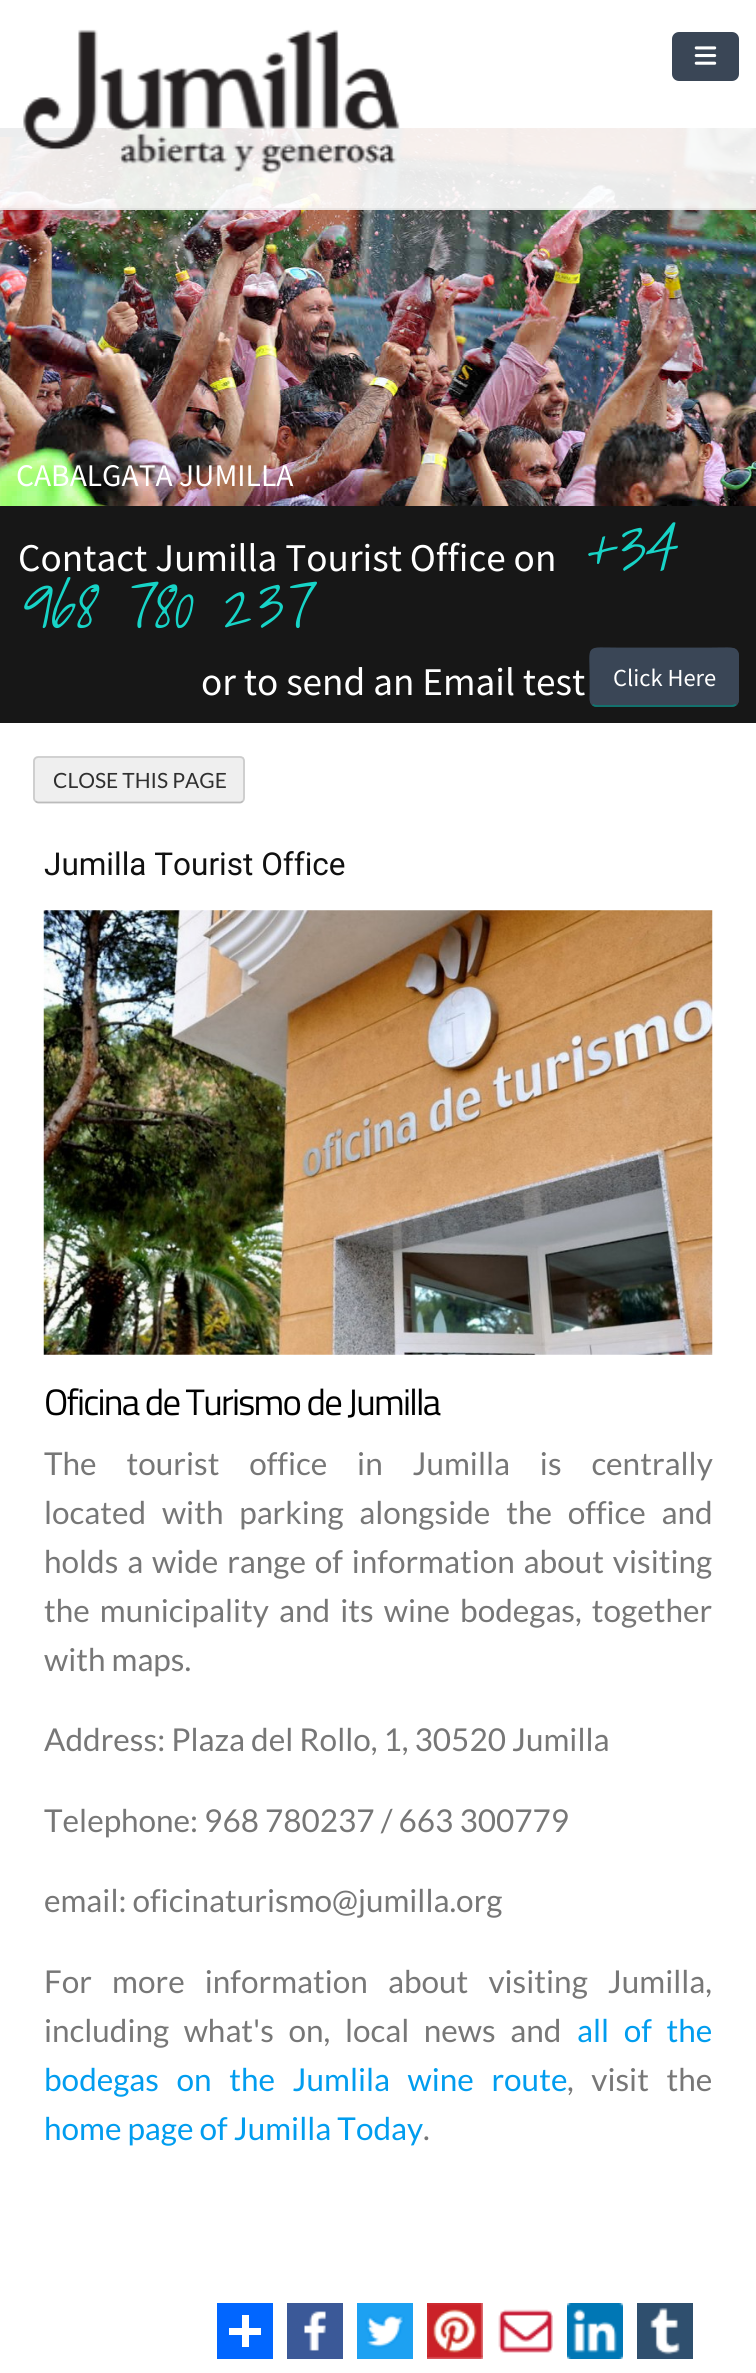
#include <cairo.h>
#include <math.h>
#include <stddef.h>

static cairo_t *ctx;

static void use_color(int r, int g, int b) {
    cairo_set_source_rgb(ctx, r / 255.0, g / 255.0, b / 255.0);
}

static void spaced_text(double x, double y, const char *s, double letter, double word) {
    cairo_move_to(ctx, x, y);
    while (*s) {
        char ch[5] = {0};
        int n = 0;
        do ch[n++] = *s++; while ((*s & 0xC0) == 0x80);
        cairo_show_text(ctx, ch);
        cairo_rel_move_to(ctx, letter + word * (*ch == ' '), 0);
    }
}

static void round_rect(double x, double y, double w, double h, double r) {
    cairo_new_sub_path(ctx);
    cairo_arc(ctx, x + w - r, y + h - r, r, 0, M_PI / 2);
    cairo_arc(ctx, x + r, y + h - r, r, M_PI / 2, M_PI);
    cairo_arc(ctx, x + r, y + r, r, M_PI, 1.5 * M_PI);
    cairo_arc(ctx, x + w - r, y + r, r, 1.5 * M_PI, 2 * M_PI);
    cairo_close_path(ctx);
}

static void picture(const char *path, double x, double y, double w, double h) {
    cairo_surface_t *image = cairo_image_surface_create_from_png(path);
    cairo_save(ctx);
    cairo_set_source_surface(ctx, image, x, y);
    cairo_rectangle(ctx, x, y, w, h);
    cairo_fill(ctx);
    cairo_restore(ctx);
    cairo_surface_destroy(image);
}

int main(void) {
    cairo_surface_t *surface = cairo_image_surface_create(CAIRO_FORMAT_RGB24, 756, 2373);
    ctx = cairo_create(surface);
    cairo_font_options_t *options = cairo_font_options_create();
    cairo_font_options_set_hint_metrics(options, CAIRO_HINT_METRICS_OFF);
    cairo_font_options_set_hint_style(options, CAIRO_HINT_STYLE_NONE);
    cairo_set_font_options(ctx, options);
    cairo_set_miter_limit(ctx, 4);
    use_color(255, 255, 255);
    cairo_paint(ctx);
    picture("img3.png", 0, 128, 756, 378);
    use_color(58, 70, 86);
    cairo_rectangle(ctx, 0, 128, 70, 9);
    cairo_fill(ctx);
    cairo_set_source_rgba(ctx, 1, 1, 1, 0.9);
    cairo_rectangle(ctx, 0, 128, 756, 82);
    cairo_fill(ctx);
    picture("img1.png", 23, 29, 377, 145);
    use_color(58, 70, 86);
    round_rect(672, 32, 67, 49, 7);
    cairo_fill(ctx);
    picture("img2.png", 694, 46, 23, 19);
    cairo_set_source_rgba(ctx, 0, 0, 0, 0.05);
    cairo_rectangle(ctx, 0, 208, 756, 2);
    cairo_fill(ctx);
    cairo_select_font_face(ctx, "Source Sans Pro", CAIRO_FONT_SLANT_NORMAL, CAIRO_FONT_WEIGHT_NORMAL);
    cairo_set_font_size(ctx, 31.5);
    use_color(255, 255, 255);
    cairo_move_to(ctx, 16, 486);
    cairo_show_text(ctx, "CABALGATA JUMILLA");
    use_color(23, 23, 23);
    cairo_rectangle(ctx, 0, 506, 756, 217);
    cairo_fill(ctx);
    cairo_set_font_size(ctx, 39.25);
    use_color(255, 255, 255);
    cairo_move_to(ctx, 18, 571);
    cairo_show_text(ctx, "Contact Jumilla Tourist Office on");
    cairo_select_font_face(ctx, "Shadows Into Light Light", CAIRO_FONT_SLANT_ITALIC, CAIRO_FONT_WEIGHT_NORMAL);
    cairo_set_font_size(ctx, 62.75);
    use_color(23, 212, 199);
    cairo_move_to(ctx, 583, 571);
    cairo_show_text(ctx, "+34");
    cairo_move_to(ctx, 18, 628);
    cairo_show_text(ctx, "968 780 237");
    cairo_select_font_face(ctx, "Source Sans Pro", CAIRO_FONT_SLANT_NORMAL, CAIRO_FONT_WEIGHT_NORMAL);
    cairo_set_font_size(ctx, 39.25);
    use_color(255, 255, 255);
    cairo_move_to(ctx, 201, 695);
    cairo_show_text(ctx, "or to send an Email test");
    use_color(58, 70, 86);
    round_rect(590, 648, 149, 59, 7);
    cairo_fill(ctx);
    cairo_new_path(ctx);
    cairo_move_to(ctx, 736, 704.5);
    cairo_curve_to(ctx, 734.5, 705.5, 733, 706, 731.5, 706);
    cairo_line_to(ctx, 597, 706);
    cairo_curve_to(ctx, 595, 706, 593.5, 705.5, 592.5, 704.5);
    use_color(13, 120, 113);
    cairo_set_line_width(ctx, 1.8);
    cairo_stroke(ctx);
    cairo_new_path(ctx);
    cairo_move_to(ctx, 592.5, 704.5);
    cairo_curve_to(ctx, 589.5, 701.5, 590.5, 696, 590.5, 692.5);
    cairo_line_to(ctx, 590.5, 677);
    cairo_curve_to(ctx, 590.5, 644, 585, 648.5, 619, 648.5);
    cairo_line_to(ctx, 709, 648.5);
    cairo_curve_to(ctx, 743, 648.5, 737.5, 644, 737.5, 677);
    cairo_line_to(ctx, 737.5, 692.5);
    cairo_curve_to(ctx, 737.5, 696, 739, 701.5, 736, 704.5);
    use_color(58, 70, 86);
    cairo_stroke(ctx);
    cairo_set_font_size(ctx, 24.5);
    use_color(255, 255, 255);
    cairo_move_to(ctx, 613, 686);
    cairo_show_text(ctx, "Click Here");
    use_color(239, 239, 239);
    round_rect(33, 756, 212, 47, 5);
    cairo_fill(ctx);
    cairo_new_path(ctx);
    cairo_move_to(ctx, 243, 801);
    cairo_curve_to(ctx, 242, 802, 241, 802.5, 240, 802.5);
    cairo_line_to(ctx, 38.5, 802.5);
    cairo_curve_to(ctx, 37.5, 802.5, 36, 802, 35.5, 801);
    use_color(187, 187, 187);
    cairo_stroke(ctx);
    cairo_new_path(ctx);
    cairo_move_to(ctx, 35.5, 801);
    cairo_curve_to(ctx, 34.5, 800.5, 34, 799, 34, 798);
    cairo_line_to(ctx, 34, 761);
    cairo_curve_to(ctx, 34, 760, 34.5, 759, 35.5, 758);
    cairo_curve_to(ctx, 36, 757.5, 37.5, 757, 38.5, 757);
    cairo_line_to(ctx, 240, 757);
    cairo_curve_to(ctx, 241, 757, 242, 757.5, 243, 758);
    cairo_curve_to(ctx, 243.5, 759, 244, 760, 244, 761);
    cairo_line_to(ctx, 244, 798);
    cairo_curve_to(ctx, 244, 799, 243.5, 800.5, 243, 801);
    use_color(204, 204, 204);
    cairo_stroke(ctx);
    cairo_select_font_face(ctx, "Lato", CAIRO_FONT_SLANT_NORMAL, CAIRO_FONT_WEIGHT_NORMAL);
    cairo_set_font_size(ctx, 21);
    use_color(48, 48, 48);
    cairo_move_to(ctx, 53, 788);
    cairo_show_text(ctx, "CLOSE THIS PAGE");
    cairo_select_font_face(ctx, "Roboto", CAIRO_FONT_SLANT_NORMAL, CAIRO_FONT_WEIGHT_NORMAL);
    cairo_set_font_size(ctx, 31.5);
    use_color(17, 17, 17);
    cairo_move_to(ctx, 44, 875);
    cairo_show_text(ctx, "Jumilla Tourist Office");
    picture("img4.png", 43, 910, 670, 445);
    cairo_select_font_face(ctx, "Titillium Web", CAIRO_FONT_SLANT_NORMAL, CAIRO_FONT_WEIGHT_NORMAL);
    cairo_set_font_size(ctx, 36.75);
    use_color(0, 0, 0);
    spaced_text(44, 1415, "Oficina de Turismo de Jumilla", -1.75, 0);
    cairo_select_font_face(ctx, "Lato", CAIRO_FONT_SLANT_NORMAL, CAIRO_FONT_WEIGHT_NORMAL);
    cairo_set_font_size(ctx, 31.5);
    use_color(119, 119, 119);
    spaced_text(44, 1475, "The tourist office in Jumilla is centrally", 0, 23.75);
    spaced_text(44, 1524, "located with parking alongside the office and", 0, 9.75);
    spaced_text(44, 1573, "holds a wide range of information about visiting", 0, 2.75);
    spaced_text(44, 1622, "the municipality and its wine bodegas, together", 0, 4);
    cairo_move_to(ctx, 44, 1671);
    cairo_show_text(ctx, "with maps.");
    cairo_move_to(ctx, 44, 1751);
    cairo_show_text(ctx, "Address: Plaza del Rollo, 1, 30520 Jumilla");
    cairo_move_to(ctx, 44, 1832);
    cairo_show_text(ctx, "Telephone: 968 780237 / 663 300779");
    cairo_move_to(ctx, 44, 1912);
    cairo_show_text(ctx, "email: oficinaturismo@jumilla.org");
    spaced_text(44, 1993, "For more information about visiting Jumilla,", 0, 14);
    spaced_text(44, 2042, "including what's on, local news and", 0, 8.5);
    use_color(1, 157, 239);
    spaced_text(577, 2042, "all of the", 0, 8.5);
    spaced_text(44, 2091, "bodegas on the Jumlila wine route", 0, 11.5);
    use_color(119, 119, 119);
    spaced_text(567, 2091, ", visit the", 0, 11.5);
    use_color(1, 157, 239);
    cairo_move_to(ctx, 44, 2140);
    cairo_show_text(ctx, "home page of Jumilla Today");
    use_color(119, 119, 119);
    cairo_move_to(ctx, 423, 2140);
    cairo_show_text(ctx, ".");
    use_color(1, 102, 255);
    cairo_rectangle(ctx, 217, 2303, 56, 56);
    cairo_fill(ctx);
    use_color(255, 255, 255);
    cairo_rectangle(ctx, 242, 2315, 7, 32);
    cairo_fill(ctx);
    cairo_rectangle(ctx, 229, 2328, 32, 7);
    cairo_fill(ctx);
    picture("img5.png", 287, 2303, 56, 56);
    picture("img6.png", 357, 2303, 56, 56);
    picture("img7.png", 427, 2303, 56, 56);
    picture("img8.png", 498, 2309, 55, 44);
    picture("img9.png", 567, 2303, 56, 56);
    picture("img10.png", 637, 2303, 56, 56);
    cairo_surface_write_to_png(surface, "result.png");
    cairo_font_options_destroy(options);
    cairo_destroy(ctx);
    cairo_surface_destroy(surface);
    return 0;
}
